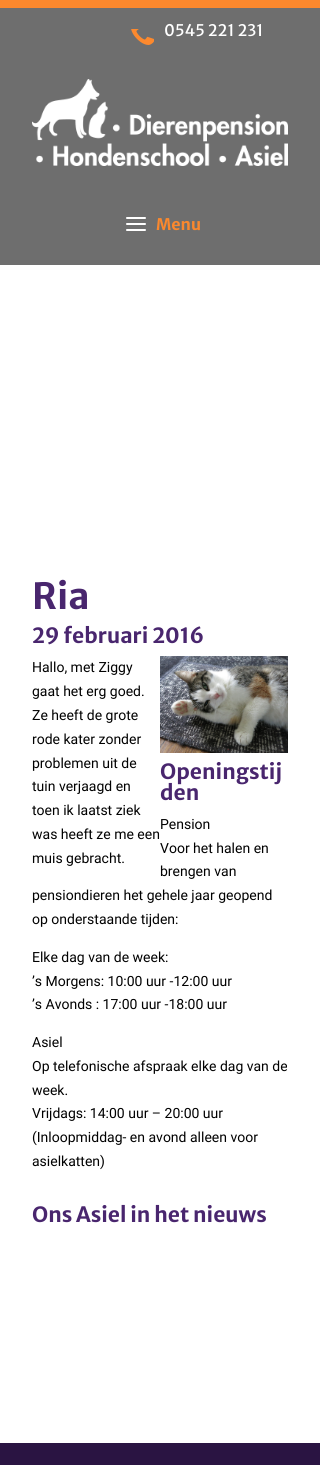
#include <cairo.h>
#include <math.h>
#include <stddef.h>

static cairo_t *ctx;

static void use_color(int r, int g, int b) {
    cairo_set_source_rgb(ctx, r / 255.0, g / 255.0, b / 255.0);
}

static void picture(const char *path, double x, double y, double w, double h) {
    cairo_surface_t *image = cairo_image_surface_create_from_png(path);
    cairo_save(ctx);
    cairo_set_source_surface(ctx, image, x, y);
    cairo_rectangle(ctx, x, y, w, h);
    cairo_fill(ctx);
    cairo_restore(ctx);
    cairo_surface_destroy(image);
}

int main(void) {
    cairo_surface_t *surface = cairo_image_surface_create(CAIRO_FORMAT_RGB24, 320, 1465);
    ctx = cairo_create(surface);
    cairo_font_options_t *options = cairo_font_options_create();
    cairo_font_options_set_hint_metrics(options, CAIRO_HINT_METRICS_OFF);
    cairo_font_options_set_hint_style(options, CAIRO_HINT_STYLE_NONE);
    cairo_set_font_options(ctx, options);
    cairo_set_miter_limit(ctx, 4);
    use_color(255, 255, 255);
    cairo_paint(ctx);
    use_color(110, 110, 110);
    cairo_rectangle(ctx, 0, 8, 320, 257);
    cairo_fill(ctx);
    use_color(251, 136, 45);
    cairo_rectangle(ctx, 0, 0, 320, 8);
    cairo_fill(ctx);
    picture("img1.png", 131, 29, 23, 16);
    cairo_select_font_face(ctx, "Merriweather Sans", CAIRO_FONT_SLANT_NORMAL, CAIRO_FONT_WEIGHT_NORMAL);
    cairo_set_font_size(ctx, 16);
    use_color(255, 255, 255);
    cairo_move_to(ctx, 164, 36);
    cairo_show_text(ctx, "0545 221 231");
    picture("img2.png", 32, 79, 256, 87);
    picture("img3.png", 126, 217, 20, 14);
    cairo_select_font_face(ctx, "Merriweather Sans", CAIRO_FONT_SLANT_NORMAL, CAIRO_FONT_WEIGHT_BOLD);
    use_color(251, 136, 45);
    cairo_move_to(ctx, 156, 230);
    cairo_show_text(ctx, "Menu");
    cairo_set_font_size(ctx, 36);
    use_color(73, 38, 110);
    cairo_move_to(ctx, 32, 609);
    cairo_show_text(ctx, "Ria");
    cairo_set_font_size(ctx, 21);
    cairo_move_to(ctx, 32, 643);
    cairo_show_text(ctx, "29 februari 2016");
    cairo_select_font_face(ctx, "Roboto", CAIRO_FONT_SLANT_NORMAL, CAIRO_FONT_WEIGHT_NORMAL);
    cairo_set_font_size(ctx, 14);
    use_color(1, 1, 1);
    cairo_move_to(ctx, 32, 672);
    cairo_show_text(ctx, "Hallo, met Ziggy");
    cairo_move_to(ctx, 32, 696);
    cairo_show_text(ctx, "gaat het erg goed.");
    cairo_move_to(ctx, 32, 720);
    cairo_show_text(ctx, "Ze heeft de grote");
    cairo_move_to(ctx, 32, 744);
    cairo_show_text(ctx, "rode kater zonder");
    cairo_move_to(ctx, 32, 768);
    cairo_show_text(ctx, "problemen uit de");
    cairo_move_to(ctx, 32, 791);
    cairo_show_text(ctx, "tuin verjaagd en");
    cairo_move_to(ctx, 32, 815);
    cairo_show_text(ctx, "toen ik laatst ziek");
    cairo_move_to(ctx, 32, 839);
    cairo_show_text(ctx, "was heeft ze me een");
    cairo_move_to(ctx, 32, 863);
    cairo_show_text(ctx, "muis gebracht.");
    picture("img4.png", 160, 656, 128, 97);
    cairo_select_font_face(ctx, "Merriweather Sans", CAIRO_FONT_SLANT_NORMAL, CAIRO_FONT_WEIGHT_BOLD);
    cairo_set_font_size(ctx, 21);
    use_color(73, 38, 110);
    cairo_move_to(ctx, 160, 779);
    cairo_show_text(ctx, "Openingstij");
    cairo_move_to(ctx, 160, 800);
    cairo_show_text(ctx, "den");
    cairo_select_font_face(ctx, "Roboto", CAIRO_FONT_SLANT_NORMAL, CAIRO_FONT_WEIGHT_NORMAL);
    cairo_set_font_size(ctx, 14);
    use_color(1, 1, 1);
    cairo_move_to(ctx, 160, 829);
    cairo_show_text(ctx, "Pension");
    cairo_move_to(ctx, 160, 853);
    cairo_show_text(ctx, "Voor het halen en");
    cairo_move_to(ctx, 160, 876);
    cairo_show_text(ctx, "brengen van");
    cairo_move_to(ctx, 32, 900);
    cairo_show_text(ctx, "pensiondieren het gehele jaar geopend");
    cairo_move_to(ctx, 32, 924);
    cairo_show_text(ctx, "op onderstaande tijden:");
    cairo_move_to(ctx, 32, 962);
    cairo_show_text(ctx, "Elke dag van de week:");
    cairo_move_to(ctx, 32, 986);
    cairo_show_text(ctx, "’s Morgens: 10:00 uur -12:00 uur");
    cairo_move_to(ctx, 32, 1009);
    cairo_show_text(ctx, "’s Avonds : 17:00 uur -18:00 uur");
    cairo_move_to(ctx, 32, 1047);
    cairo_show_text(ctx, "Asiel");
    cairo_move_to(ctx, 32, 1071);
    cairo_show_text(ctx, "Op telefonische afspraak elke dag van de");
    cairo_move_to(ctx, 32, 1095);
    cairo_show_text(ctx, "week.");
    cairo_move_to(ctx, 32, 1118);
    cairo_show_text(ctx, "Vrijdags: 14:00 uur – 20:00 uur");
    cairo_move_to(ctx, 32, 1142);
    cairo_show_text(ctx, "(Inloopmiddag- en avond alleen voor");
    cairo_move_to(ctx, 32, 1166);
    cairo_show_text(ctx, "asielkatten)");
    cairo_select_font_face(ctx, "Merriweather Sans", CAIRO_FONT_SLANT_NORMAL, CAIRO_FONT_WEIGHT_BOLD);
    cairo_set_font_size(ctx, 21);
    use_color(73, 38, 110);
    cairo_move_to(ctx, 32, 1222);
    cairo_show_text(ctx, "Ons Asiel in het nieuws");
    use_color(42, 20, 66);
    cairo_rectangle(ctx, 0, 1443, 320, 22);
    cairo_fill(ctx);
    cairo_surface_write_to_png(surface, "result.png");
    cairo_font_options_destroy(options);
    cairo_destroy(ctx);
    cairo_surface_destroy(surface);
    return 0;
}
